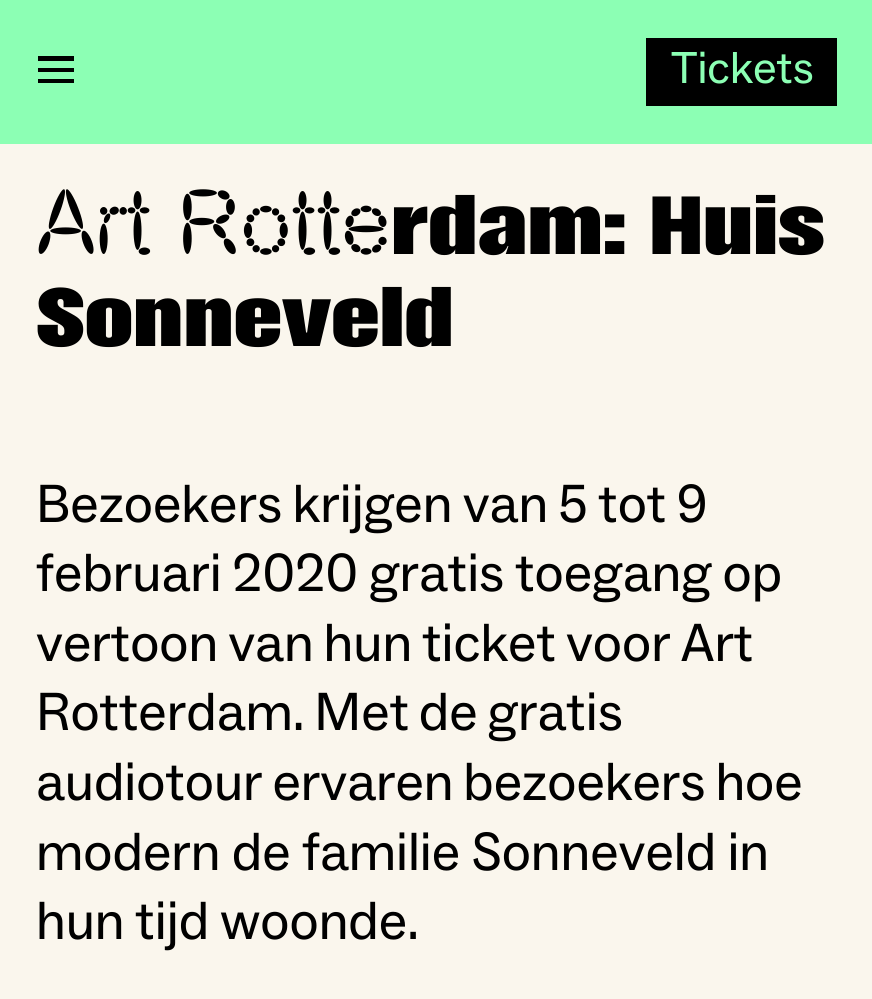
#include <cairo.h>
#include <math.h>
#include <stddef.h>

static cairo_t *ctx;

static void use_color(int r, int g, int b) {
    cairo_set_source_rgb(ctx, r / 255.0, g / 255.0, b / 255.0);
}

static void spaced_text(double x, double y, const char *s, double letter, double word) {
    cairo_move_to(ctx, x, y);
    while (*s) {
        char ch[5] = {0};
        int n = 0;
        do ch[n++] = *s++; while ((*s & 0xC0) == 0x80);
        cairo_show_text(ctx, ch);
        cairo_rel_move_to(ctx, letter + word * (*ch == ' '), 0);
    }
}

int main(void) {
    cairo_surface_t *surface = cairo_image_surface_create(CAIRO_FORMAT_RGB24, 872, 999);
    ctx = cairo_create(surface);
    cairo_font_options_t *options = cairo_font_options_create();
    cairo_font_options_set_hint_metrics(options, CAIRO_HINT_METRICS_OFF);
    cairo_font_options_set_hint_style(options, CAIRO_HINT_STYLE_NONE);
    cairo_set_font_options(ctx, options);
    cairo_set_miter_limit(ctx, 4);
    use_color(250, 246, 237);
    cairo_paint(ctx);
    use_color(140, 255, 180);
    cairo_rectangle(ctx, 0, 0, 872, 144);
    cairo_fill(ctx);
    use_color(0, 0, 0);
    cairo_rectangle(ctx, 38, 56, 36, 5);
    cairo_fill(ctx);
    cairo_rectangle(ctx, 38, 68, 36, 4);
    cairo_fill(ctx);
    cairo_rectangle(ctx, 38, 79, 36, 4);
    cairo_fill(ctx);
    cairo_rectangle(ctx, 646, 38, 191, 68);
    cairo_fill(ctx);
    cairo_select_font_face(ctx, "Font", CAIRO_FONT_SLANT_NORMAL, CAIRO_FONT_WEIGHT_NORMAL);
    cairo_set_font_size(ctx, 45);
    use_color(140, 255, 180);
    cairo_move_to(ctx, 671, 83);
    cairo_show_text(ctx, "Tickets");
    cairo_select_font_face(ctx, "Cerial", CAIRO_FONT_SLANT_NORMAL, CAIRO_FONT_WEIGHT_NORMAL);
    cairo_set_font_size(ctx, 90);
    use_color(0, 0, 0);
    cairo_move_to(ctx, 36, 254);
    cairo_show_text(ctx, "Art Rotte");
    cairo_select_font_face(ctx, "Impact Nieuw", CAIRO_FONT_SLANT_NORMAL, CAIRO_FONT_WEIGHT_NORMAL);
    cairo_set_font_size(ctx, 76.5);
    spaced_text(391, 254, "rdam: Huis", 0, -1);
    cairo_move_to(ctx, 36, 346);
    cairo_show_text(ctx, "Sonneveld");
    cairo_select_font_face(ctx, "Font", CAIRO_FONT_SLANT_NORMAL, CAIRO_FONT_WEIGHT_NORMAL);
    cairo_set_font_size(ctx, 54);
    spaced_text(36, 522, "Bezoekers krijgen van 5 tot 9", 0, -1.5);
    spaced_text(36, 591, "februari 2020 gratis toegang op", 0, -1);
    spaced_text(36, 661, "vertoon van hun ticket voor Art", 0, -1.75);
    spaced_text(36, 730, "Rotterdam. Met de gratis", 0, -2);
    spaced_text(36, 800, "audiotour ervaren bezoekers hoe", 0, -2);
    spaced_text(36, 870, "modern de familie Sonneveld in", 0, -0.5);
    spaced_text(36, 939, "hun tijd woonde.", 0, -1);
    cairo_surface_write_to_png(surface, "result.png");
    cairo_font_options_destroy(options);
    cairo_destroy(ctx);
    cairo_surface_destroy(surface);
    return 0;
}
